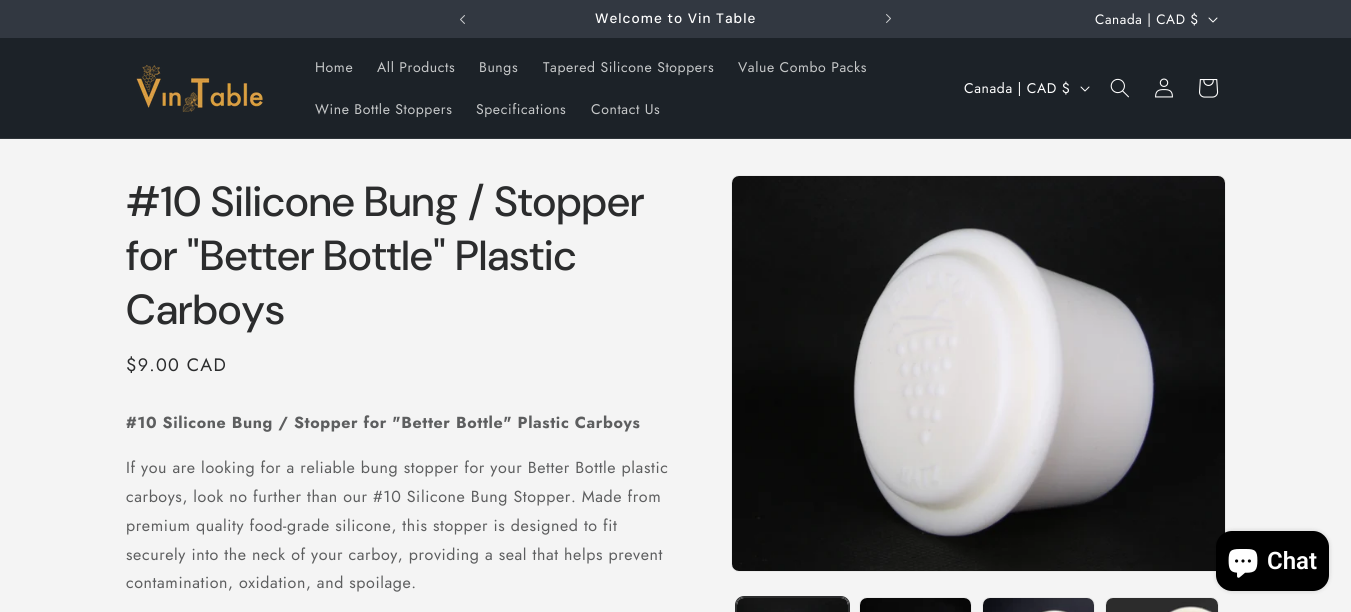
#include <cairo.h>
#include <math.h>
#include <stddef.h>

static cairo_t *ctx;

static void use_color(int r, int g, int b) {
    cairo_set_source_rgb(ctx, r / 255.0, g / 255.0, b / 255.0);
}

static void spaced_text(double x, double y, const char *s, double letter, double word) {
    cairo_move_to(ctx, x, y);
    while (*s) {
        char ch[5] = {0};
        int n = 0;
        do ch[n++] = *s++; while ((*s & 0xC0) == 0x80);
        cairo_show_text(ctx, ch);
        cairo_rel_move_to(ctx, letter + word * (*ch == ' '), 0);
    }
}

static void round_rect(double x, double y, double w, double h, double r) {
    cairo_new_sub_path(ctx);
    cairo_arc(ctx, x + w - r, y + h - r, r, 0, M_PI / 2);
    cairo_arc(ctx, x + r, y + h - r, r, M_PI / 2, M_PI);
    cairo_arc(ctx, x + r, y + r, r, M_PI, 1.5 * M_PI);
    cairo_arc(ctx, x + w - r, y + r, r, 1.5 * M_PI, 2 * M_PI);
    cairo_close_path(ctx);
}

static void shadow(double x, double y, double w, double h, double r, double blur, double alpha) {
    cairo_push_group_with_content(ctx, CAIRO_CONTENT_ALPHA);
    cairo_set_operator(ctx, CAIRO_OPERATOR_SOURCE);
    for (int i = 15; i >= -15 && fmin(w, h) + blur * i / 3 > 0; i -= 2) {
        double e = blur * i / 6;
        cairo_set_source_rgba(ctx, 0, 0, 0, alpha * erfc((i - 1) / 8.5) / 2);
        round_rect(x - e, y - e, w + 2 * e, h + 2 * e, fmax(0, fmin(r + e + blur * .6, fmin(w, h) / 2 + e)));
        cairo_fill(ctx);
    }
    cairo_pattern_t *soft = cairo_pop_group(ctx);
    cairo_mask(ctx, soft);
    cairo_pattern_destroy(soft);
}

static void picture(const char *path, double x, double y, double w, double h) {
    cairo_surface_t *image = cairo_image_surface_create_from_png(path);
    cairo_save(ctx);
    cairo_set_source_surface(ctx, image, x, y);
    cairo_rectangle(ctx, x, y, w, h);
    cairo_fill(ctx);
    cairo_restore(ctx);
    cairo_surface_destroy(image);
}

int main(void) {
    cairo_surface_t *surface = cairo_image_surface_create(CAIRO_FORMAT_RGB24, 1351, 612);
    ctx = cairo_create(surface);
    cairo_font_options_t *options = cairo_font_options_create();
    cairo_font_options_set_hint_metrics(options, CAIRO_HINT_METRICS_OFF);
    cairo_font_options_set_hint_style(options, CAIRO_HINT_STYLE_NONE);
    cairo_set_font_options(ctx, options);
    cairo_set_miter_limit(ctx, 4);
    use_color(244, 244, 244);
    cairo_paint(ctx);
    use_color(50, 56, 65);
    cairo_rectangle(ctx, 0, 0, 1351, 38);
    cairo_fill(ctx);
    picture("img1.png", 460, 15, 5, 9);
    cairo_select_font_face(ctx, "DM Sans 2 Medium", CAIRO_FONT_SLANT_NORMAL, CAIRO_FONT_WEIGHT_NORMAL);
    cairo_set_font_size(ctx, 13.6);
    use_color(255, 255, 255);
    spaced_text(595, 23, "Welcome to Vin Table", 1, 0);
    picture("img2.png", 886, 14, 5, 9);
    cairo_select_font_face(ctx, "Jost", CAIRO_FONT_SLANT_NORMAL, CAIRO_FONT_WEIGHT_NORMAL);
    spaced_text(1095, 24, "Canada | CAD $", 0.6, 0);
    picture("img3.png", 1208, 17, 10, 6);
    use_color(28, 34, 40);
    cairo_rectangle(ctx, 0, 38, 1351, 100);
    cairo_fill(ctx);
    use_color(46, 52, 57);
    cairo_rectangle(ctx, 0, 138, 1351, 1);
    cairo_fill(ctx);
    picture("img4.png", 136, 65, 127, 47);
    cairo_set_font_size(ctx, 14);
    use_color(198, 200, 201);
    spaced_text(315, 72, "Home", 0.6, 0);
    spaced_text(377, 72, "All Products", 0.6, 0);
    spaced_text(479, 72, "Bungs", 0.6, 0);
    spaced_text(543, 72, "Tapered Silicone Stoppers", 0.6, 0);
    spaced_text(738, 72, "Value Combo Packs", 0.6, 0);
    spaced_text(315, 114, "Wine Bottle Stoppers", 0.6, 0);
    spaced_text(476, 114, "Specifications", 0.6, 0);
    spaced_text(591, 114, "Contact Us", 0.6, 0);
    use_color(255, 255, 255);
    spaced_text(964, 93, "Canada | CAD $", 0.6, 0);
    picture("img5.png", 1080, 86, 10, 6);
    picture("img6.png", 1110, 78, 19, 20);
    picture("img7.png", 1155, 78, 18, 20);
    picture("img8.png", 1199, 79, 20, 19);
    cairo_select_font_face(ctx, "DM Sans Medium", CAIRO_FONT_SLANT_NORMAL, CAIRO_FONT_WEIGHT_NORMAL);
    cairo_set_font_size(ctx, 42);
    use_color(43, 44, 45);
    spaced_text(126, 216, "#10 Silicone Bung / Stopper", 0.6, 0);
    spaced_text(126, 270, "for \"Better Bottle\" Plastic", 0.6, 0);
    spaced_text(126, 324, "Carboys", 0.6, 0);
    cairo_select_font_face(ctx, "Jost", CAIRO_FONT_SLANT_NORMAL, CAIRO_FONT_WEIGHT_NORMAL);
    cairo_set_font_size(ctx, 18);
    spaced_text(126, 371, "$9.00 CAD", 1.25, 0);
    cairo_select_font_face(ctx, "Jost", CAIRO_FONT_SLANT_NORMAL, CAIRO_FONT_WEIGHT_BOLD);
    cairo_set_font_size(ctx, 16);
    use_color(93, 94, 95);
    spaced_text(126, 428, "#10 Silicone Bung / Stopper for \"Better Bottle\" Plastic Carboys", 0.6, 0);
    cairo_select_font_face(ctx, "Jost", CAIRO_FONT_SLANT_NORMAL, CAIRO_FONT_WEIGHT_NORMAL);
    spaced_text(126, 473, "If you are looking for a reliable bung stopper for your Better Bottle plastic", 0.6, 0);
    spaced_text(126, 502, "carboys, look no further than our #10 Silicone Bung Stopper. Made from", 0.6, 0);
    spaced_text(126, 531, "premium quality food-grade silicone, this stopper is designed to fit", 0.6, 0);
    spaced_text(126, 560, "securely into the neck of your carboy, providing a seal that helps prevent", 0.6, 0);
    spaced_text(126, 588, "contamination, oxidation, and spoilage.", 0.6, 0);
    round_rect(731.5, 175.5, 494, 396, 7.5);
    use_color(234, 234, 234);
    cairo_set_line_width(ctx, 1);
    cairo_stroke(ctx);
    picture("img9.png", 732, 176, 493, 395);
    round_rect(735.5, 596.5, 114, 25, 8.5);
    use_color(43, 44, 45);
    cairo_stroke(ctx);
    round_rect(736.5, 597.5, 112, 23, 7.5);
    cairo_stroke(ctx);
    picture("img10.png", 737, 598, 111, 14);
    round_rect(859.5, 597.5, 112, 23, 7.5);
    use_color(234, 234, 234);
    cairo_stroke(ctx);
    picture("img11.png", 860, 598, 111, 14);
    round_rect(982.5, 597.5, 112, 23, 7.5);
    cairo_stroke(ctx);
    picture("img12.png", 983, 598, 111, 14);
    round_rect(1105.5, 597.5, 113, 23, 7.5);
    cairo_stroke(ctx);
    picture("img13.png", 1106, 598, 112, 14);
    use_color(0, 0, 0);
    shadow(1216, 531, 113, 60, 16, 2.5, 0.15);
    use_color(0, 0, 0);
    round_rect(1216, 531, 113, 60, 16);
    cairo_fill(ctx);
    picture("img14.png", 1228, 549, 30, 29);
    cairo_select_font_face(ctx, "Roboto SemiBold", CAIRO_FONT_SLANT_NORMAL, CAIRO_FONT_WEIGHT_NORMAL);
    cairo_set_font_size(ctx, 24);
    use_color(255, 255, 255);
    cairo_move_to(ctx, 1267, 569);
    cairo_show_text(ctx, "Chat");
    cairo_surface_write_to_png(surface, "result.png");
    cairo_font_options_destroy(options);
    cairo_destroy(ctx);
    cairo_surface_destroy(surface);
    return 0;
}
